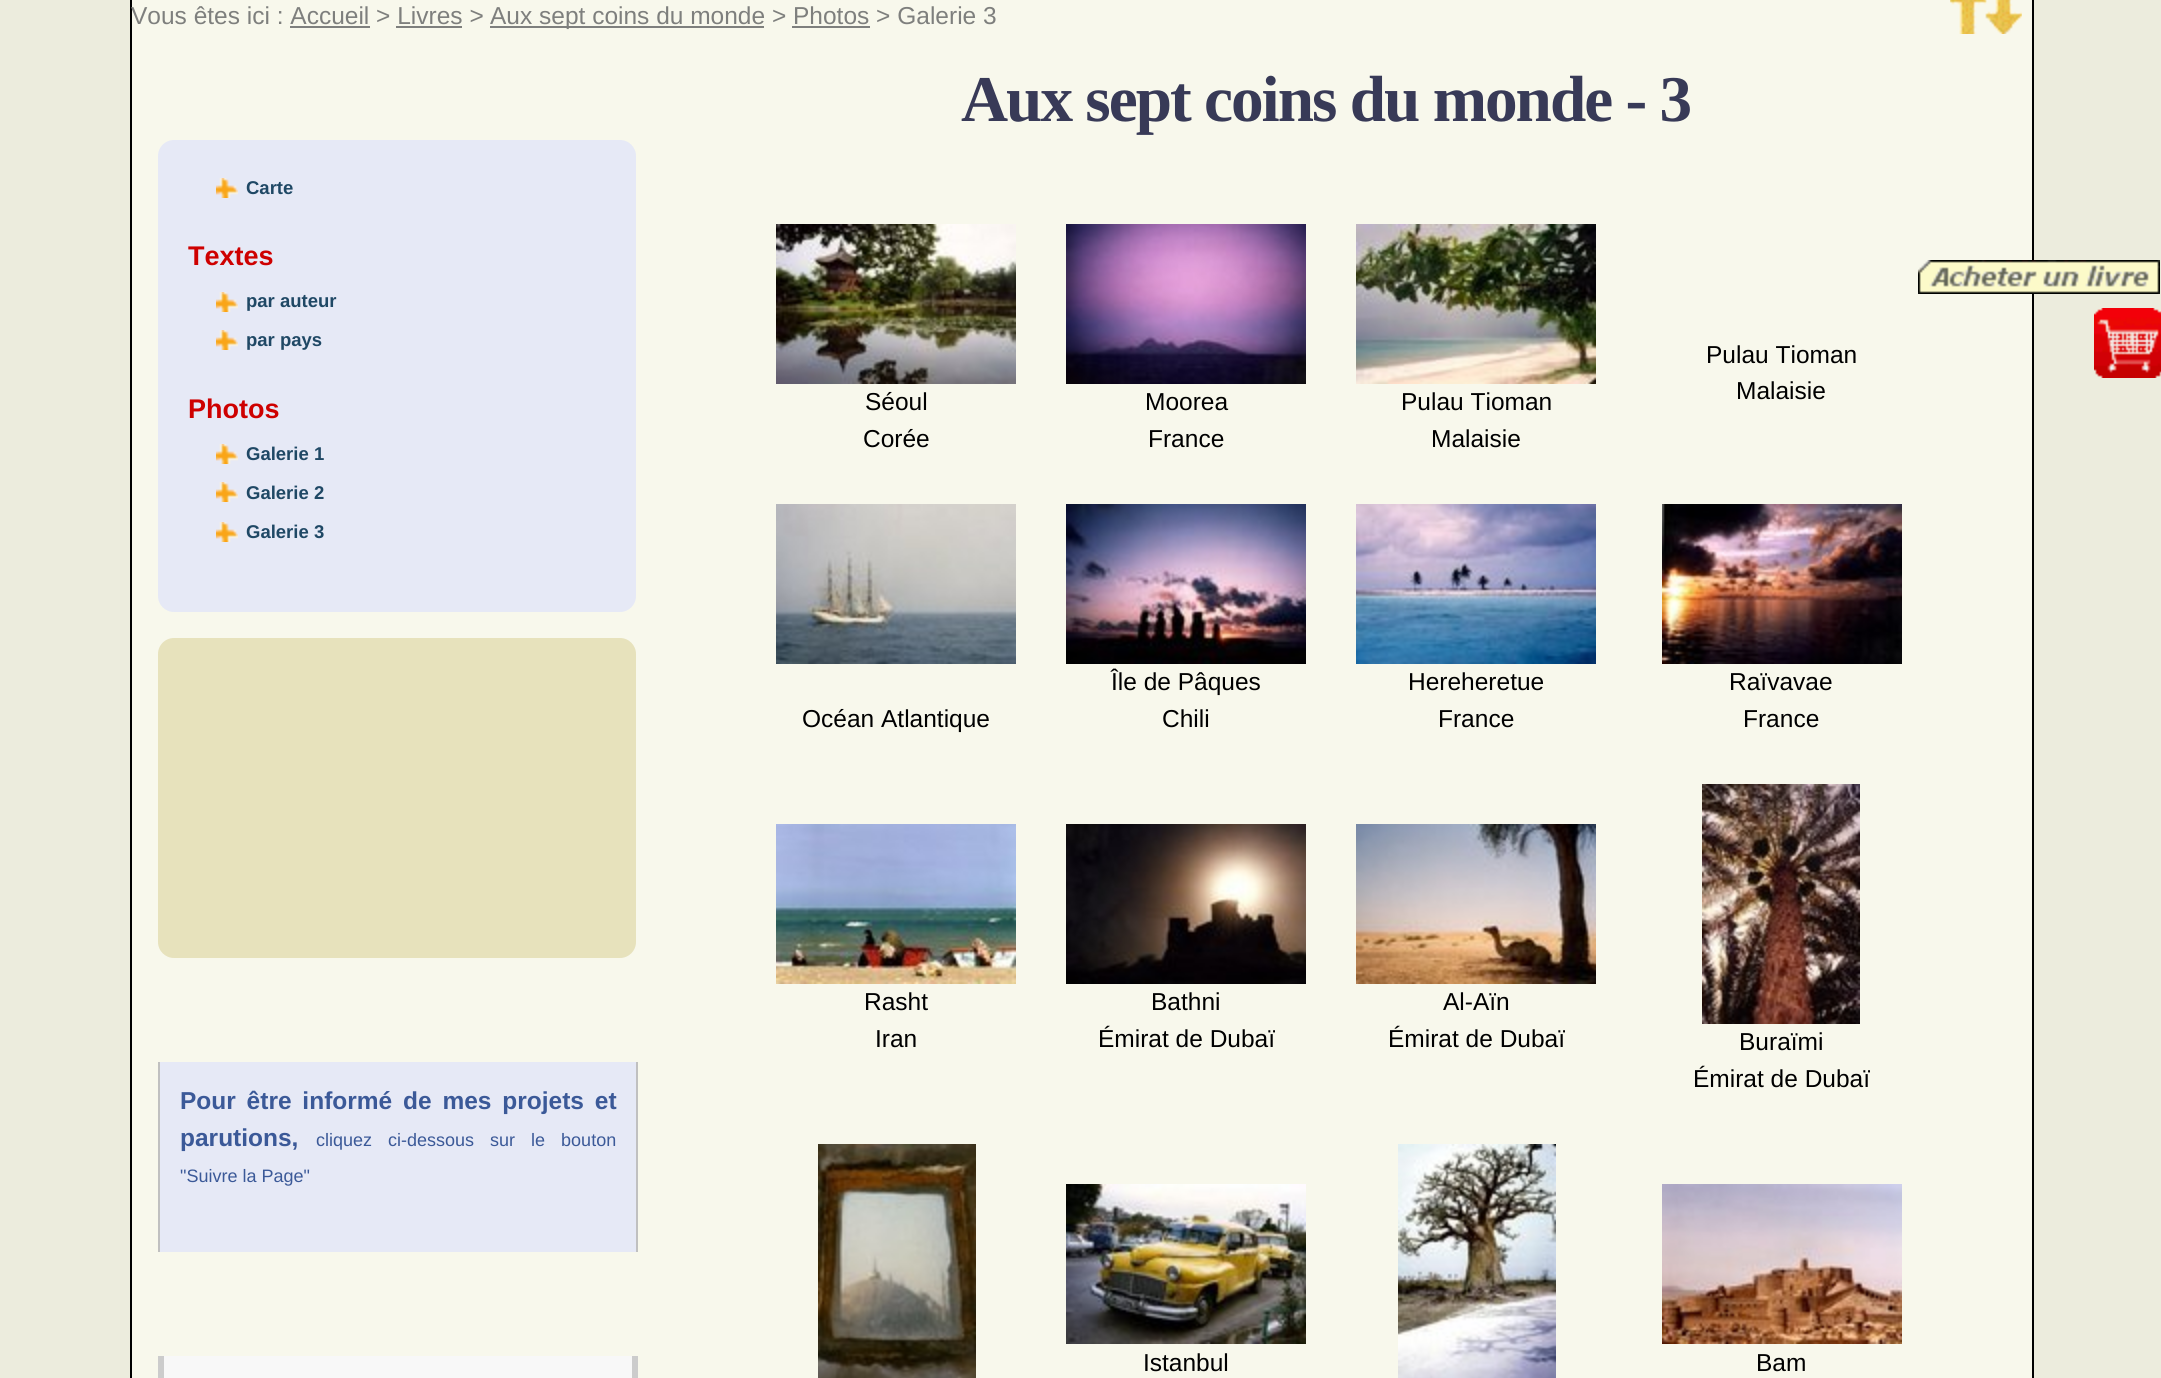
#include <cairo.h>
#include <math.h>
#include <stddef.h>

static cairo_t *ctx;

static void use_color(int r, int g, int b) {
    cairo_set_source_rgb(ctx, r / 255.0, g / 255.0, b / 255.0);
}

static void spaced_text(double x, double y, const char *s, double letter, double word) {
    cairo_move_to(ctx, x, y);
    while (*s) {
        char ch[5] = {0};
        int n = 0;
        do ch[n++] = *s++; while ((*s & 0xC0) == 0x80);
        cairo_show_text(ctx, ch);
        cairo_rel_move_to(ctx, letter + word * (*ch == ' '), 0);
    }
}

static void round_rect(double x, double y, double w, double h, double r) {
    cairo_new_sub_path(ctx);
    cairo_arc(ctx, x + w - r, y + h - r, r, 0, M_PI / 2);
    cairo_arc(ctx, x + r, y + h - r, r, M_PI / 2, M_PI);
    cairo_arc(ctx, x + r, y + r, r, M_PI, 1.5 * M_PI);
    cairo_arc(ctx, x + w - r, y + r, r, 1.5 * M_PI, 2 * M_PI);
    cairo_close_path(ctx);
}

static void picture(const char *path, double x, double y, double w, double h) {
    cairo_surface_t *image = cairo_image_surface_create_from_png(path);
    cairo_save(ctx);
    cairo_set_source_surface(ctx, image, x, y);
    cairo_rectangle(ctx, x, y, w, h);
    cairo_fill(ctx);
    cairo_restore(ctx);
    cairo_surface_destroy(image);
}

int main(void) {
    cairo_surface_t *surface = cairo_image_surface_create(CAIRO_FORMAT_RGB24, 2161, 1378);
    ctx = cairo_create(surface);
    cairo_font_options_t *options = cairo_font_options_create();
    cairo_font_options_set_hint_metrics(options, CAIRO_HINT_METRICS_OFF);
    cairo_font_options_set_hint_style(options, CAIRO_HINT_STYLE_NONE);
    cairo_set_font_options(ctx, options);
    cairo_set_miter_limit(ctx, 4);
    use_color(236, 236, 221);
    cairo_paint(ctx);
    use_color(248, 248, 236);
    cairo_rectangle(ctx, 131, -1, 1902, 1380);
    cairo_fill_preserve(ctx);
    use_color(0, 0, 0);
    cairo_stroke(ctx);
    cairo_select_font_face(ctx, "Liberation Sans", CAIRO_FONT_SLANT_NORMAL, CAIRO_FONT_WEIGHT_NORMAL);
    cairo_set_font_size(ctx, 24.5);
    use_color(126, 127, 125);
    cairo_move_to(ctx, 131, 24);
    cairo_show_text(ctx, "Vous êtes ici : Accueil > Livres >");
    cairo_rectangle(ctx, 490, 26, 274, 2);
    cairo_fill(ctx);
    cairo_move_to(ctx, 490, 24);
    cairo_show_text(ctx, "Aux sept coins du monde > Photos > Galerie 3");
    cairo_rectangle(ctx, 290, 26, 80, 2);
    cairo_fill(ctx);
    cairo_rectangle(ctx, 396, 26, 66, 2);
    cairo_fill(ctx);
    cairo_rectangle(ctx, 792, 26, 78, 2);
    cairo_fill(ctx);
    use_color(230, 233, 246);
    round_rect(158, 140, 478, 472, 16);
    cairo_fill(ctx);
    picture("img1.png", 216, 178, 22, 20);
    cairo_select_font_face(ctx, "Liberation Sans", CAIRO_FONT_SLANT_NORMAL, CAIRO_FONT_WEIGHT_BOLD);
    cairo_set_font_size(ctx, 18.5);
    use_color(31, 72, 101);
    cairo_move_to(ctx, 246, 194);
    cairo_show_text(ctx, "Carte");
    cairo_set_font_size(ctx, 27);
    use_color(206, 0, 0);
    cairo_move_to(ctx, 188, 265);
    cairo_show_text(ctx, "Textes");
    picture("img1.png", 216, 292, 22, 20);
    cairo_set_font_size(ctx, 18.5);
    use_color(31, 72, 101);
    cairo_move_to(ctx, 246, 307);
    cairo_show_text(ctx, "par auteur");
    picture("img1.png", 216, 330, 22, 20);
    cairo_move_to(ctx, 246, 346);
    cairo_show_text(ctx, "par pays");
    cairo_set_font_size(ctx, 27);
    use_color(206, 0, 0);
    cairo_move_to(ctx, 188, 418);
    cairo_show_text(ctx, "Photos");
    picture("img1.png", 216, 444, 22, 20);
    cairo_set_font_size(ctx, 18.5);
    use_color(31, 72, 101);
    cairo_move_to(ctx, 246, 460);
    cairo_show_text(ctx, "Galerie 1");
    picture("img1.png", 216, 482, 22, 20);
    cairo_move_to(ctx, 246, 499);
    cairo_show_text(ctx, "Galerie 2");
    picture("img1.png", 216, 522, 22, 20);
    cairo_move_to(ctx, 246, 538);
    cairo_show_text(ctx, "Galerie 3");
    use_color(231, 226, 188);
    round_rect(158, 638, 478, 320, 16);
    cairo_fill(ctx);
    use_color(230, 233, 246);
    cairo_rectangle(ctx, 160, 1062, 476, 190);
    cairo_fill(ctx);
    use_color(192, 192, 192);
    cairo_rectangle(ctx, 636, 1062, 2, 190);
    cairo_fill(ctx);
    cairo_rectangle(ctx, 158, 1062, 2, 190);
    cairo_fill(ctx);
    cairo_set_font_size(ctx, 24.5);
    use_color(59, 89, 152);
    spaced_text(180, 1109, "Pour être informé de mes projets et", 0, 4);
    cairo_move_to(ctx, 180, 1146);
    cairo_show_text(ctx, "parutions,");
    cairo_select_font_face(ctx, "Liberation Sans", CAIRO_FONT_SLANT_NORMAL, CAIRO_FONT_WEIGHT_NORMAL);
    cairo_set_font_size(ctx, 18);
    spaced_text(316, 1146, "cliquez ci-dessous sur le bouton", 0, 11);
    cairo_move_to(ctx, 180, 1182);
    cairo_show_text(ctx, "\"Suivre la Page\"");
    use_color(248, 248, 248);
    cairo_rectangle(ctx, 164, 1356, 468, 22);
    cairo_fill(ctx);
    use_color(204, 204, 204);
    cairo_rectangle(ctx, 632, 1356, 6, 22);
    cairo_fill(ctx);
    cairo_rectangle(ctx, 158, 1356, 6, 22);
    cairo_fill(ctx);
    picture("img2.png", 1950, 0, 36, 34);
    picture("img3.png", 1986, 0, 36, 34);
    cairo_select_font_face(ctx, "Liberation Serif", CAIRO_FONT_SLANT_NORMAL, CAIRO_FONT_WEIGHT_BOLD);
    cairo_set_font_size(ctx, 65.25);
    use_color(56, 58, 87);
    spaced_text(961, 121, "Aux sept coins du monde - 3", -2, 0);
    cairo_select_font_face(ctx, "Liberation Sans", CAIRO_FONT_SLANT_NORMAL, CAIRO_FONT_WEIGHT_NORMAL);
    cairo_set_font_size(ctx, 24.5);
    use_color(0, 0, 0);
    cairo_move_to(ctx, 1706, 363);
    cairo_show_text(ctx, "Pulau Tioman");
    cairo_move_to(ctx, 1736, 399);
    cairo_show_text(ctx, "Malaisie");
    picture("img4.png", 776, 224, 240, 160);
    cairo_move_to(ctx, 865, 410);
    cairo_show_text(ctx, "Séoul");
    cairo_move_to(ctx, 863, 447);
    cairo_show_text(ctx, "Corée");
    picture("img5.png", 1066, 224, 240, 160);
    cairo_move_to(ctx, 1145, 410);
    cairo_show_text(ctx, "Moorea");
    cairo_move_to(ctx, 1148, 447);
    cairo_show_text(ctx, "France");
    picture("img6.png", 1356, 224, 240, 160);
    cairo_move_to(ctx, 1401, 410);
    cairo_show_text(ctx, "Pulau Tioman");
    cairo_move_to(ctx, 1431, 447);
    cairo_show_text(ctx, "Malaisie");
    picture("img7.png", 776, 504, 240, 160);
    cairo_move_to(ctx, 802, 727);
    cairo_show_text(ctx, "Océan Atlantique");
    picture("img8.png", 1066, 504, 240, 160);
    cairo_move_to(ctx, 1111, 690);
    cairo_show_text(ctx, "Île de Pâques");
    cairo_move_to(ctx, 1162, 727);
    cairo_show_text(ctx, "Chili");
    picture("img9.png", 1356, 504, 240, 160);
    cairo_move_to(ctx, 1408, 690);
    cairo_show_text(ctx, "Hereheretue");
    cairo_move_to(ctx, 1438, 727);
    cairo_show_text(ctx, "France");
    picture("img10.png", 1662, 504, 240, 160);
    cairo_move_to(ctx, 1729, 690);
    cairo_show_text(ctx, "Raïvavae");
    cairo_move_to(ctx, 1743, 727);
    cairo_show_text(ctx, "France");
    picture("img11.png", 776, 824, 240, 160);
    cairo_move_to(ctx, 864, 1010);
    cairo_show_text(ctx, "Rasht");
    cairo_move_to(ctx, 875, 1047);
    cairo_show_text(ctx, "Iran");
    picture("img12.png", 1066, 824, 240, 160);
    cairo_move_to(ctx, 1151, 1010);
    cairo_show_text(ctx, "Bathni");
    cairo_move_to(ctx, 1098, 1047);
    cairo_show_text(ctx, "Émirat de Dubaï");
    picture("img13.png", 1356, 824, 240, 160);
    cairo_move_to(ctx, 1443, 1010);
    cairo_show_text(ctx, "Al-Aïn");
    cairo_move_to(ctx, 1388, 1047);
    cairo_show_text(ctx, "Émirat de Dubaï");
    picture("img14.png", 1702, 784, 158, 240);
    cairo_move_to(ctx, 1739, 1050);
    cairo_show_text(ctx, "Buraïmi");
    cairo_move_to(ctx, 1693, 1087);
    cairo_show_text(ctx, "Émirat de Dubaï");
    picture("img15.png", 818, 1144, 158, 234);
    picture("img16.png", 1066, 1184, 240, 160);
    cairo_move_to(ctx, 1143, 1371);
    cairo_show_text(ctx, "Istanbul");
    picture("img17.png", 1398, 1144, 158, 234);
    picture("img18.png", 1662, 1184, 240, 160);
    cairo_move_to(ctx, 1756, 1371);
    cairo_show_text(ctx, "Bam");
    picture("img19.png", 1918, 260, 242, 34);
    picture("img20.png", 2094, 308, 67, 70);
    cairo_surface_write_to_png(surface, "result.png");
    cairo_font_options_destroy(options);
    cairo_destroy(ctx);
    cairo_surface_destroy(surface);
    return 0;
}
